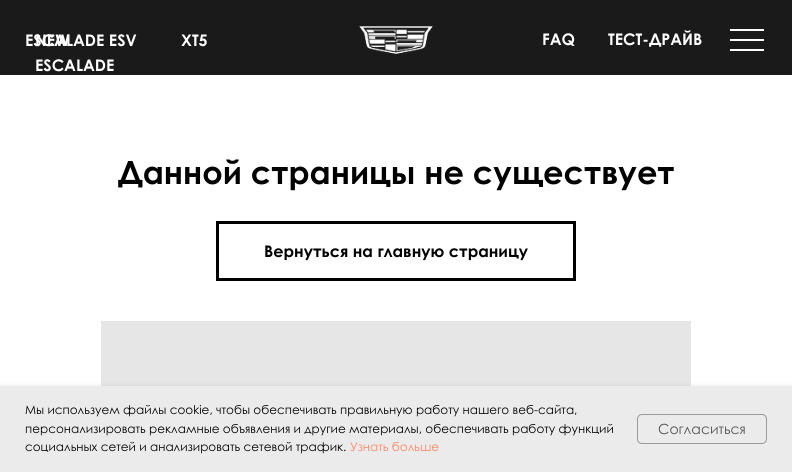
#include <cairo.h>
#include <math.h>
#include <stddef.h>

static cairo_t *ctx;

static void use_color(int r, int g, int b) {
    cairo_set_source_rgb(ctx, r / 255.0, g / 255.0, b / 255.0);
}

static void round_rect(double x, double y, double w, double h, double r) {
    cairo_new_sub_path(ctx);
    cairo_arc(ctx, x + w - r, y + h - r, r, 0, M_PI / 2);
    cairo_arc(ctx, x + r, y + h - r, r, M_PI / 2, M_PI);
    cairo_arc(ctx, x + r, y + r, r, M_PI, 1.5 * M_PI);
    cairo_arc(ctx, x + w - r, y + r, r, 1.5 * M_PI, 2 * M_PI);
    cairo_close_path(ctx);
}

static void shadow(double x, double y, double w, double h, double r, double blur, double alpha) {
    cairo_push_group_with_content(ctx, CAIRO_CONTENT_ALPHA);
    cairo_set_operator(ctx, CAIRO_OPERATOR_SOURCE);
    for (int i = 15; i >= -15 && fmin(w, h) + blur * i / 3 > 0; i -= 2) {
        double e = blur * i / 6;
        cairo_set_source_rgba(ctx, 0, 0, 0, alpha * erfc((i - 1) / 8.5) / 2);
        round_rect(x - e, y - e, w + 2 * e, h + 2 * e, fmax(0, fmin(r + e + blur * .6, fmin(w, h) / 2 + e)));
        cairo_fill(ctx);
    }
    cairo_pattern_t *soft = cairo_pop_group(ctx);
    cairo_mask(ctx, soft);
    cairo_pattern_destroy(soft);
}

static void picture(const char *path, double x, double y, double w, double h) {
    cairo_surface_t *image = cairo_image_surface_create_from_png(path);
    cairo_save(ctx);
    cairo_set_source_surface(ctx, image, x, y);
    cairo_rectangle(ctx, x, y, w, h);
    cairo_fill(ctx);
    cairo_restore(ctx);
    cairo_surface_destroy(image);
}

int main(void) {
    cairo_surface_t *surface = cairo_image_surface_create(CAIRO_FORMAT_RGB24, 792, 472);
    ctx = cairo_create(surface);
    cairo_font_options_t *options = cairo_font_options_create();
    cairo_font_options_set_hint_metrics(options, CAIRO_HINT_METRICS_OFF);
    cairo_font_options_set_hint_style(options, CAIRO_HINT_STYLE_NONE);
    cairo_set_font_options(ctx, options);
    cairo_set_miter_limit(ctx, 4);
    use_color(255, 255, 255);
    cairo_paint(ctx);
    use_color(26, 26, 26);
    cairo_rectangle(ctx, 0, 0, 792, 75);
    cairo_fill(ctx);
    cairo_select_font_face(ctx, "Century Gothic", CAIRO_FONT_SLANT_NORMAL, CAIRO_FONT_WEIGHT_BOLD);
    cairo_set_font_size(ctx, 16);
    use_color(255, 255, 255);
    cairo_move_to(ctx, 25, 46);
    cairo_show_text(ctx, "ESCALADE ESV");
    picture("img1.png", 359, 26, 74, 28);
    cairo_move_to(ctx, 542, 45);
    cairo_show_text(ctx, "FAQ");
    cairo_move_to(ctx, 608, 45);
    cairo_show_text(ctx, "ТЕСТ-ДРАЙВ");
    cairo_new_path(ctx);
    cairo_move_to(ctx, 730, 31);
    cairo_line_to(ctx, 730, 29);
    cairo_line_to(ctx, 764, 29);
    cairo_line_to(ctx, 764, 31);
    cairo_close_path(ctx);
    cairo_move_to(ctx, 764, 39);
    cairo_line_to(ctx, 764, 41);
    cairo_line_to(ctx, 730, 41);
    cairo_line_to(ctx, 730, 39);
    cairo_close_path(ctx);
    cairo_move_to(ctx, 730, 49);
    cairo_line_to(ctx, 764, 49);
    cairo_line_to(ctx, 764, 51);
    cairo_line_to(ctx, 730, 51);
    cairo_close_path(ctx);
    cairo_fill(ctx);
    cairo_move_to(ctx, 35, 46);
    cairo_show_text(ctx, "NEW");
    cairo_move_to(ctx, 35, 71);
    cairo_show_text(ctx, "ESCALADE");
    cairo_move_to(ctx, 181, 46);
    cairo_show_text(ctx, "XT5");
    cairo_set_font_size(ctx, 32);
    use_color(0, 0, 0);
    cairo_move_to(ctx, 118, 184);
    cairo_show_text(ctx, "Данной страницы не существует");
    cairo_rectangle(ctx, 217.5, 222.5, 357, 57);
    cairo_set_line_width(ctx, 3);
    cairo_stroke(ctx);
    cairo_set_font_size(ctx, 16);
    cairo_move_to(ctx, 264, 257);
    cairo_show_text(ctx, "Вернуться на главную страницу");
    use_color(230, 230, 230);
    cairo_rectangle(ctx, 101, 321, 590, 65);
    cairo_fill(ctx);
    use_color(0, 0, 0);
    shadow(0, 386, 792, 86, 0, 2.5, 0.1);
    use_color(235, 235, 235);
    cairo_rectangle(ctx, 0, 386, 792, 86);
    cairo_fill(ctx);
    cairo_select_font_face(ctx, "Century Gothic", CAIRO_FONT_SLANT_NORMAL, CAIRO_FONT_WEIGHT_NORMAL);
    cairo_set_font_size(ctx, 12);
    use_color(0, 0, 0);
    cairo_move_to(ctx, 25, 414);
    cairo_show_text(ctx, "Мы используем файлы cookie, чтобы обеспечивать правильную работу нашего веб-сайта,");
    cairo_move_to(ctx, 25, 433);
    cairo_show_text(ctx, "персонализировать рекламные объявления и другие материалы, обеспечивать работу функций");
    cairo_move_to(ctx, 25, 451);
    cairo_show_text(ctx, "социальных сетей и анализировать сетевой трафик.");
    use_color(255, 133, 98);
    cairo_move_to(ctx, 350, 451);
    cairo_show_text(ctx, "Узнать больше");
    round_rect(637.5, 414.5, 129, 29, 4.5);
    use_color(153, 153, 153);
    cairo_set_line_width(ctx, 1);
    cairo_stroke(ctx);
    cairo_set_font_size(ctx, 14);
    use_color(85, 85, 85);
    cairo_move_to(ctx, 658, 434);
    cairo_show_text(ctx, "Согласиться");
    cairo_surface_write_to_png(surface, "result.png");
    cairo_font_options_destroy(options);
    cairo_destroy(ctx);
    cairo_surface_destroy(surface);
    return 0;
}
